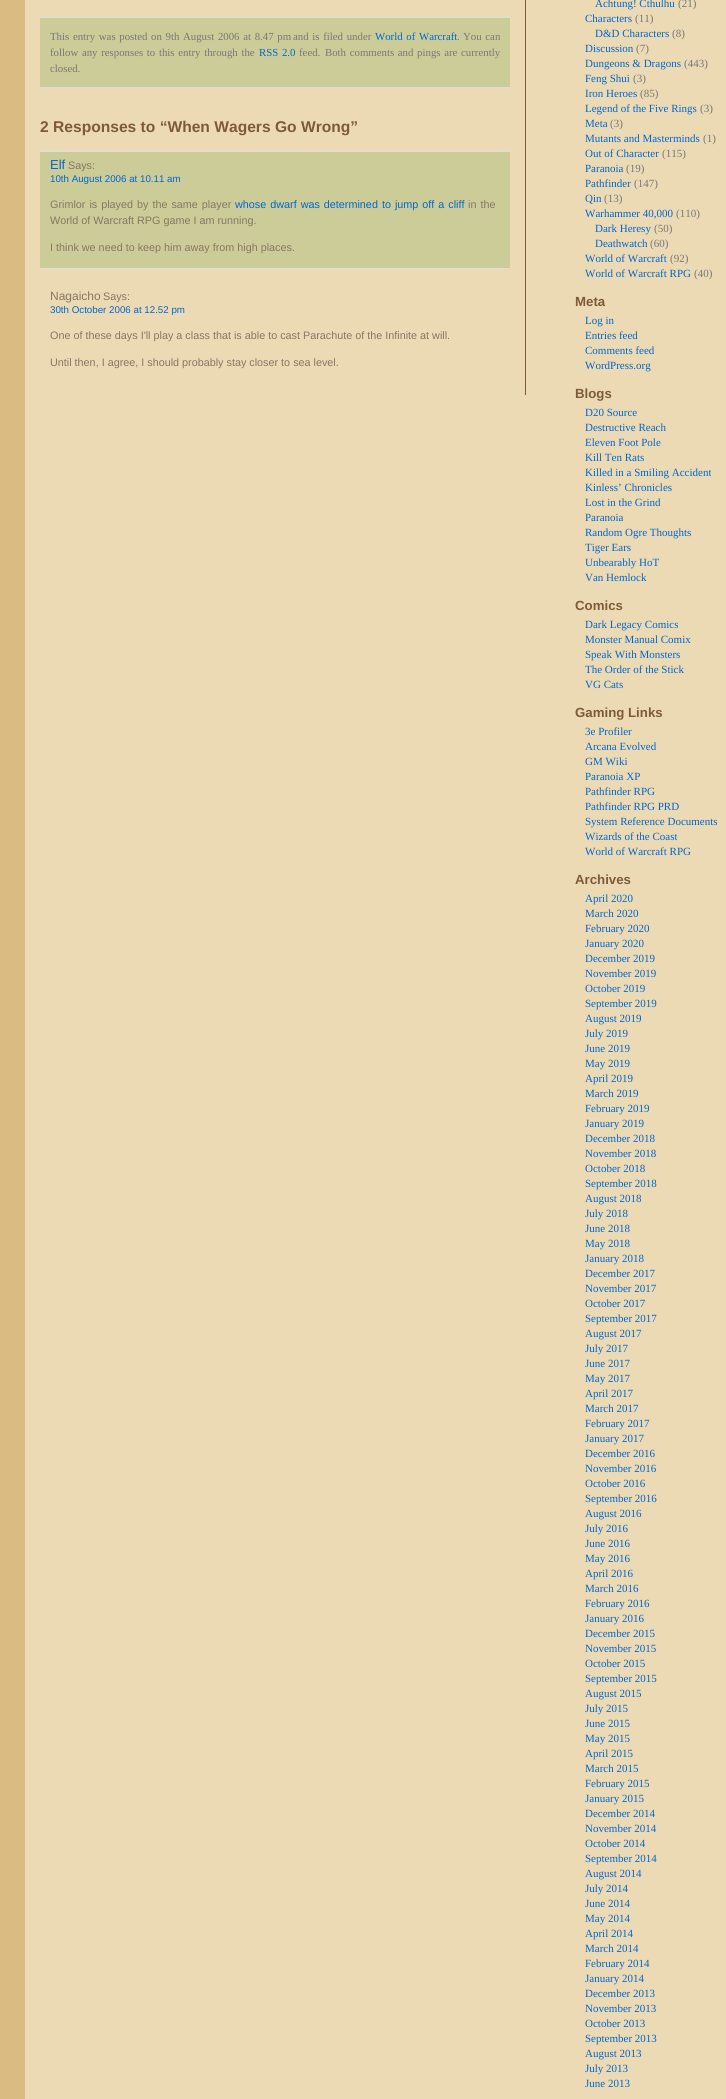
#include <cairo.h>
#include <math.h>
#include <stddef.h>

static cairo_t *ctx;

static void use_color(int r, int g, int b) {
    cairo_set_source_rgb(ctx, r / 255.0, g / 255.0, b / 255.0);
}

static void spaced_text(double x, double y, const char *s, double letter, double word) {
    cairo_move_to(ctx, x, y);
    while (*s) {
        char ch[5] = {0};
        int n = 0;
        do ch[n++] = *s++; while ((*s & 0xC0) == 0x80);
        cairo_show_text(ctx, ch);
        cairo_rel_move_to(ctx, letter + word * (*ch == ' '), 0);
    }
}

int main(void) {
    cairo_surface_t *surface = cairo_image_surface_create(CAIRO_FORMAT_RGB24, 726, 2099);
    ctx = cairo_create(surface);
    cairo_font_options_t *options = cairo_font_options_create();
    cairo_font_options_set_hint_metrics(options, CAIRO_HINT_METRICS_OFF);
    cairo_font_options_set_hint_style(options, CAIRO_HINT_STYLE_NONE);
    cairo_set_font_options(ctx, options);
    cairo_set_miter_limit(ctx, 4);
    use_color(218, 187, 130);
    cairo_paint(ctx);
    use_color(236, 218, 181);
    cairo_rectangle(ctx, 25, 0, 701, 2099);
    cairo_fill(ctx);
    use_color(125, 91, 56);
    cairo_rectangle(ctx, 525, 0, 1, 395);
    cairo_fill(ctx);
    use_color(204, 204, 153);
    cairo_rectangle(ctx, 40, 18, 470, 69);
    cairo_fill(ctx);
    use_color(221, 221, 221);
    cairo_rectangle(ctx, 40, 17, 470, 1);
    cairo_fill(ctx);
    cairo_rectangle(ctx, 40, 87, 470, 1);
    cairo_fill(ctx);
    cairo_select_font_face(ctx, "Liberation Serif", CAIRO_FONT_SLANT_NORMAL, CAIRO_FONT_WEIGHT_NORMAL);
    cairo_set_font_size(ctx, 10.8);
    use_color(119, 119, 119);
    spaced_text(50, 40, "This entry was posted", 0, 1);
    spaced_text(151, 40, "on 9th August 2006 at 8.47 pm", 0, 1);
    spaced_text(293, 40, "and is filed under", 0, 1);
    use_color(0, 102, 204);
    spaced_text(375, 40, "World of Warcraft", 0, 1);
    use_color(119, 119, 119);
    cairo_move_to(ctx, 457, 40);
    cairo_show_text(ctx, ".");
    spaced_text(463, 40, "You can", 0, 1);
    spaced_text(50, 56, "follow any responses to this entry through the", 0, 1);
    use_color(0, 102, 204);
    spaced_text(259, 56, "RSS 2.0", 0, 1);
    use_color(119, 119, 119);
    cairo_move_to(ctx, 299, 56);
    cairo_show_text(ctx, "feed.");
    spaced_text(325, 56, "Both comments and pings are currently", 0, 1);
    cairo_move_to(ctx, 50, 72);
    cairo_show_text(ctx, "closed.");
    cairo_select_font_face(ctx, "Liberation Sans", CAIRO_FONT_SLANT_NORMAL, CAIRO_FONT_WEIGHT_BOLD);
    cairo_set_font_size(ctx, 15.6);
    use_color(125, 91, 56);
    cairo_move_to(ctx, 40, 132);
    cairo_show_text(ctx, "2 Responses to “When Wagers Go Wrong”");
    use_color(204, 204, 153);
    cairo_rectangle(ctx, 40, 152, 470, 116);
    cairo_fill(ctx);
    use_color(221, 221, 221);
    cairo_rectangle(ctx, 40, 151, 470, 1);
    cairo_fill(ctx);
    cairo_rectangle(ctx, 40, 268, 470, 1);
    cairo_fill(ctx);
    cairo_select_font_face(ctx, "Liberation Sans", CAIRO_FONT_SLANT_NORMAL, CAIRO_FONT_WEIGHT_NORMAL);
    cairo_set_font_size(ctx, 13);
    use_color(0, 102, 204);
    cairo_move_to(ctx, 50, 169);
    cairo_show_text(ctx, "Elf");
    cairo_set_font_size(ctx, 10.8);
    use_color(134, 118, 99);
    cairo_move_to(ctx, 68, 169);
    cairo_show_text(ctx, "Says:");
    cairo_set_font_size(ctx, 9.75);
    use_color(0, 102, 204);
    cairo_move_to(ctx, 50, 182);
    cairo_show_text(ctx, "10th August 2006 at 10.11 am");
    cairo_set_font_size(ctx, 10.8);
    use_color(134, 118, 99);
    spaced_text(50, 208, "Grimlor is played by the same player", 0, 1);
    use_color(0, 102, 204);
    spaced_text(235, 208, "whose dwarf was determined to jump off a cliff", 0, 1);
    use_color(134, 118, 99);
    spaced_text(468, 208, "in the", 0, 1);
    cairo_move_to(ctx, 50, 224);
    cairo_show_text(ctx, "World of Warcraft RPG game I am running.");
    cairo_move_to(ctx, 50, 251);
    cairo_show_text(ctx, "I think we need to keep him away from high places.");
    cairo_set_font_size(ctx, 12);
    cairo_move_to(ctx, 50, 300);
    cairo_show_text(ctx, "Nagaicho");
    cairo_set_font_size(ctx, 10.8);
    cairo_move_to(ctx, 103, 300);
    cairo_show_text(ctx, "Says:");
    cairo_set_font_size(ctx, 9.75);
    use_color(0, 102, 204);
    cairo_move_to(ctx, 50, 313);
    cairo_show_text(ctx, "30th October 2006 at 12.52 pm");
    cairo_set_font_size(ctx, 10.8);
    use_color(134, 118, 99);
    cairo_move_to(ctx, 50, 339);
    cairo_show_text(ctx, "One of these days I'll play a class that is able to cast Parachute of the Infinite at will.");
    cairo_move_to(ctx, 50, 366);
    cairo_show_text(ctx, "Until then, I agree, I should probably stay closer to sea level.");
    cairo_select_font_face(ctx, "Liberation Serif", CAIRO_FONT_SLANT_NORMAL, CAIRO_FONT_WEIGHT_NORMAL);
    cairo_set_font_size(ctx, 11);
    use_color(0, 102, 204);
    cairo_move_to(ctx, 595, 7);
    cairo_show_text(ctx, "Achtung! Cthulhu");
    use_color(119, 119, 119);
    cairo_move_to(ctx, 678, 7);
    cairo_show_text(ctx, "(21)");
    use_color(0, 102, 204);
    cairo_move_to(ctx, 585, 22);
    cairo_show_text(ctx, "Characters");
    use_color(119, 119, 119);
    cairo_move_to(ctx, 635, 22);
    cairo_show_text(ctx, "(11)");
    use_color(0, 102, 204);
    cairo_move_to(ctx, 595, 37);
    cairo_show_text(ctx, "D&D Characters");
    use_color(119, 119, 119);
    cairo_move_to(ctx, 672, 37);
    cairo_show_text(ctx, "(8)");
    use_color(0, 102, 204);
    cairo_move_to(ctx, 585, 52);
    cairo_show_text(ctx, "Discussion");
    use_color(119, 119, 119);
    cairo_move_to(ctx, 636, 52);
    cairo_show_text(ctx, "(7)");
    use_color(0, 102, 204);
    cairo_move_to(ctx, 585, 67);
    cairo_show_text(ctx, "Dungeons & Dragons");
    use_color(119, 119, 119);
    cairo_move_to(ctx, 684, 67);
    cairo_show_text(ctx, "(443)");
    use_color(0, 102, 204);
    cairo_move_to(ctx, 585, 82);
    cairo_show_text(ctx, "Feng Shui");
    use_color(119, 119, 119);
    cairo_move_to(ctx, 633, 82);
    cairo_show_text(ctx, "(3)");
    use_color(0, 102, 204);
    cairo_move_to(ctx, 585, 97);
    cairo_show_text(ctx, "Iron Heroes");
    use_color(119, 119, 119);
    cairo_move_to(ctx, 640, 97);
    cairo_show_text(ctx, "(85)");
    use_color(0, 102, 204);
    cairo_move_to(ctx, 585, 112);
    cairo_show_text(ctx, "Legend of the Five Rings");
    use_color(119, 119, 119);
    cairo_move_to(ctx, 700, 112);
    cairo_show_text(ctx, "(3)");
    use_color(0, 102, 204);
    cairo_move_to(ctx, 585, 127);
    cairo_show_text(ctx, "Meta");
    use_color(119, 119, 119);
    cairo_move_to(ctx, 610, 127);
    cairo_show_text(ctx, "(3)");
    use_color(0, 102, 204);
    cairo_move_to(ctx, 585, 142);
    cairo_show_text(ctx, "Mutants and Masterminds");
    use_color(119, 119, 119);
    cairo_move_to(ctx, 703, 142);
    cairo_show_text(ctx, "(1)");
    use_color(0, 102, 204);
    cairo_move_to(ctx, 585, 157);
    cairo_show_text(ctx, "Out of Character");
    use_color(119, 119, 119);
    cairo_move_to(ctx, 662, 157);
    cairo_show_text(ctx, "(115)");
    use_color(0, 102, 204);
    cairo_move_to(ctx, 585, 172);
    cairo_show_text(ctx, "Paranoia");
    use_color(119, 119, 119);
    cairo_move_to(ctx, 626, 172);
    cairo_show_text(ctx, "(19)");
    use_color(0, 102, 204);
    cairo_move_to(ctx, 585, 187);
    cairo_show_text(ctx, "Pathfinder");
    use_color(119, 119, 119);
    cairo_move_to(ctx, 634, 187);
    cairo_show_text(ctx, "(147)");
    use_color(0, 102, 204);
    cairo_move_to(ctx, 585, 202);
    cairo_show_text(ctx, "Qin");
    use_color(119, 119, 119);
    cairo_move_to(ctx, 604, 202);
    cairo_show_text(ctx, "(13)");
    use_color(0, 102, 204);
    cairo_move_to(ctx, 585, 217);
    cairo_show_text(ctx, "Warhammer 40,000");
    use_color(119, 119, 119);
    cairo_move_to(ctx, 676, 217);
    cairo_show_text(ctx, "(110)");
    use_color(0, 102, 204);
    cairo_move_to(ctx, 595, 232);
    cairo_show_text(ctx, "Dark Heresy");
    use_color(119, 119, 119);
    cairo_move_to(ctx, 654, 232);
    cairo_show_text(ctx, "(50)");
    use_color(0, 102, 204);
    cairo_move_to(ctx, 595, 247);
    cairo_show_text(ctx, "Deathwatch");
    use_color(119, 119, 119);
    cairo_move_to(ctx, 650, 247);
    cairo_show_text(ctx, "(60)");
    use_color(0, 102, 204);
    cairo_move_to(ctx, 585, 262);
    cairo_show_text(ctx, "World of Warcraft");
    use_color(119, 119, 119);
    cairo_move_to(ctx, 670, 262);
    cairo_show_text(ctx, "(92)");
    use_color(0, 102, 204);
    cairo_move_to(ctx, 585, 277);
    cairo_show_text(ctx, "World of Warcraft RPG");
    use_color(119, 119, 119);
    cairo_move_to(ctx, 694, 277);
    cairo_show_text(ctx, "(40)");
    cairo_select_font_face(ctx, "Liberation Sans", CAIRO_FONT_SLANT_NORMAL, CAIRO_FONT_WEIGHT_BOLD);
    cairo_set_font_size(ctx, 13.25);
    use_color(125, 91, 56);
    cairo_move_to(ctx, 575, 306);
    cairo_show_text(ctx, "Meta");
    cairo_select_font_face(ctx, "Liberation Serif", CAIRO_FONT_SLANT_NORMAL, CAIRO_FONT_WEIGHT_NORMAL);
    cairo_set_font_size(ctx, 11);
    use_color(0, 102, 204);
    cairo_move_to(ctx, 585, 324);
    cairo_show_text(ctx, "Log in");
    cairo_move_to(ctx, 585, 339);
    cairo_show_text(ctx, "Entries feed");
    cairo_move_to(ctx, 585, 354);
    cairo_show_text(ctx, "Comments feed");
    cairo_move_to(ctx, 585, 369);
    cairo_show_text(ctx, "WordPress.org");
    cairo_select_font_face(ctx, "Liberation Sans", CAIRO_FONT_SLANT_NORMAL, CAIRO_FONT_WEIGHT_BOLD);
    cairo_set_font_size(ctx, 13.25);
    use_color(125, 91, 56);
    cairo_move_to(ctx, 575, 398);
    cairo_show_text(ctx, "Blogs");
    cairo_select_font_face(ctx, "Liberation Serif", CAIRO_FONT_SLANT_NORMAL, CAIRO_FONT_WEIGHT_NORMAL);
    cairo_set_font_size(ctx, 11);
    use_color(0, 102, 204);
    cairo_move_to(ctx, 585, 416);
    cairo_show_text(ctx, "D20 Source");
    cairo_move_to(ctx, 585, 431);
    cairo_show_text(ctx, "Destructive Reach");
    cairo_move_to(ctx, 585, 446);
    cairo_show_text(ctx, "Eleven Foot Pole");
    cairo_move_to(ctx, 585, 461);
    cairo_show_text(ctx, "Kill Ten Rats");
    cairo_move_to(ctx, 585, 476);
    cairo_show_text(ctx, "Killed in a Smiling Accident");
    cairo_move_to(ctx, 585, 491);
    cairo_show_text(ctx, "Kinless’ Chronicles");
    cairo_move_to(ctx, 585, 506);
    cairo_show_text(ctx, "Lost in the Grind");
    cairo_move_to(ctx, 585, 521);
    cairo_show_text(ctx, "Paranoia");
    cairo_move_to(ctx, 585, 536);
    cairo_show_text(ctx, "Random Ogre Thoughts");
    cairo_move_to(ctx, 585, 551);
    cairo_show_text(ctx, "Tiger Ears");
    cairo_move_to(ctx, 585, 566);
    cairo_show_text(ctx, "Unbearably HoT");
    cairo_move_to(ctx, 585, 581);
    cairo_show_text(ctx, "Van Hemlock");
    cairo_select_font_face(ctx, "Liberation Sans", CAIRO_FONT_SLANT_NORMAL, CAIRO_FONT_WEIGHT_BOLD);
    cairo_set_font_size(ctx, 13.25);
    use_color(125, 91, 56);
    cairo_move_to(ctx, 575, 610);
    cairo_show_text(ctx, "Comics");
    cairo_select_font_face(ctx, "Liberation Serif", CAIRO_FONT_SLANT_NORMAL, CAIRO_FONT_WEIGHT_NORMAL);
    cairo_set_font_size(ctx, 11);
    use_color(0, 102, 204);
    cairo_move_to(ctx, 585, 628);
    cairo_show_text(ctx, "Dark Legacy Comics");
    cairo_move_to(ctx, 585, 643);
    cairo_show_text(ctx, "Monster Manual Comix");
    cairo_move_to(ctx, 585, 658);
    cairo_show_text(ctx, "Speak With Monsters");
    cairo_move_to(ctx, 585, 673);
    cairo_show_text(ctx, "The Order of the Stick");
    cairo_move_to(ctx, 585, 688);
    cairo_show_text(ctx, "VG Cats");
    cairo_select_font_face(ctx, "Liberation Sans", CAIRO_FONT_SLANT_NORMAL, CAIRO_FONT_WEIGHT_BOLD);
    cairo_set_font_size(ctx, 13.25);
    use_color(125, 91, 56);
    cairo_move_to(ctx, 575, 717);
    cairo_show_text(ctx, "Gaming Links");
    cairo_select_font_face(ctx, "Liberation Serif", CAIRO_FONT_SLANT_NORMAL, CAIRO_FONT_WEIGHT_NORMAL);
    cairo_set_font_size(ctx, 11);
    use_color(0, 102, 204);
    cairo_move_to(ctx, 585, 735);
    cairo_show_text(ctx, "3e Profiler");
    cairo_move_to(ctx, 585, 750);
    cairo_show_text(ctx, "Arcana Evolved");
    cairo_move_to(ctx, 585, 765);
    cairo_show_text(ctx, "GM Wiki");
    cairo_move_to(ctx, 585, 780);
    cairo_show_text(ctx, "Paranoia XP");
    cairo_move_to(ctx, 585, 795);
    cairo_show_text(ctx, "Pathfinder RPG");
    cairo_move_to(ctx, 585, 810);
    cairo_show_text(ctx, "Pathfinder RPG PRD");
    cairo_move_to(ctx, 585, 825);
    cairo_show_text(ctx, "System Reference Documents");
    cairo_move_to(ctx, 585, 840);
    cairo_show_text(ctx, "Wizards of the Coast");
    cairo_move_to(ctx, 585, 855);
    cairo_show_text(ctx, "World of Warcraft RPG");
    cairo_select_font_face(ctx, "Liberation Sans", CAIRO_FONT_SLANT_NORMAL, CAIRO_FONT_WEIGHT_BOLD);
    cairo_set_font_size(ctx, 13.25);
    use_color(125, 91, 56);
    cairo_move_to(ctx, 575, 884);
    cairo_show_text(ctx, "Archives");
    cairo_select_font_face(ctx, "Liberation Serif", CAIRO_FONT_SLANT_NORMAL, CAIRO_FONT_WEIGHT_NORMAL);
    cairo_set_font_size(ctx, 11);
    use_color(0, 102, 204);
    cairo_move_to(ctx, 585, 902);
    cairo_show_text(ctx, "April 2020");
    cairo_move_to(ctx, 585, 917);
    cairo_show_text(ctx, "March 2020");
    cairo_move_to(ctx, 585, 932);
    cairo_show_text(ctx, "February 2020");
    cairo_move_to(ctx, 585, 947);
    cairo_show_text(ctx, "January 2020");
    cairo_move_to(ctx, 585, 962);
    cairo_show_text(ctx, "December 2019");
    cairo_move_to(ctx, 585, 977);
    cairo_show_text(ctx, "November 2019");
    cairo_move_to(ctx, 585, 992);
    cairo_show_text(ctx, "October 2019");
    cairo_move_to(ctx, 585, 1007);
    cairo_show_text(ctx, "September 2019");
    cairo_move_to(ctx, 585, 1022);
    cairo_show_text(ctx, "August 2019");
    cairo_move_to(ctx, 585, 1037);
    cairo_show_text(ctx, "July 2019");
    cairo_move_to(ctx, 585, 1052);
    cairo_show_text(ctx, "June 2019");
    cairo_move_to(ctx, 585, 1067);
    cairo_show_text(ctx, "May 2019");
    cairo_move_to(ctx, 585, 1082);
    cairo_show_text(ctx, "April 2019");
    cairo_move_to(ctx, 585, 1097);
    cairo_show_text(ctx, "March 2019");
    cairo_move_to(ctx, 585, 1112);
    cairo_show_text(ctx, "February 2019");
    cairo_move_to(ctx, 585, 1127);
    cairo_show_text(ctx, "January 2019");
    cairo_move_to(ctx, 585, 1142);
    cairo_show_text(ctx, "December 2018");
    cairo_move_to(ctx, 585, 1157);
    cairo_show_text(ctx, "November 2018");
    cairo_move_to(ctx, 585, 1172);
    cairo_show_text(ctx, "October 2018");
    cairo_move_to(ctx, 585, 1187);
    cairo_show_text(ctx, "September 2018");
    cairo_move_to(ctx, 585, 1202);
    cairo_show_text(ctx, "August 2018");
    cairo_move_to(ctx, 585, 1217);
    cairo_show_text(ctx, "July 2018");
    cairo_move_to(ctx, 585, 1232);
    cairo_show_text(ctx, "June 2018");
    cairo_move_to(ctx, 585, 1247);
    cairo_show_text(ctx, "May 2018");
    cairo_move_to(ctx, 585, 1262);
    cairo_show_text(ctx, "January 2018");
    cairo_move_to(ctx, 585, 1277);
    cairo_show_text(ctx, "December 2017");
    cairo_move_to(ctx, 585, 1292);
    cairo_show_text(ctx, "November 2017");
    cairo_move_to(ctx, 585, 1307);
    cairo_show_text(ctx, "October 2017");
    cairo_move_to(ctx, 585, 1322);
    cairo_show_text(ctx, "September 2017");
    cairo_move_to(ctx, 585, 1337);
    cairo_show_text(ctx, "August 2017");
    cairo_move_to(ctx, 585, 1352);
    cairo_show_text(ctx, "July 2017");
    cairo_move_to(ctx, 585, 1367);
    cairo_show_text(ctx, "June 2017");
    cairo_move_to(ctx, 585, 1382);
    cairo_show_text(ctx, "May 2017");
    cairo_move_to(ctx, 585, 1397);
    cairo_show_text(ctx, "April 2017");
    cairo_move_to(ctx, 585, 1412);
    cairo_show_text(ctx, "March 2017");
    cairo_move_to(ctx, 585, 1427);
    cairo_show_text(ctx, "February 2017");
    cairo_move_to(ctx, 585, 1442);
    cairo_show_text(ctx, "January 2017");
    cairo_move_to(ctx, 585, 1457);
    cairo_show_text(ctx, "December 2016");
    cairo_move_to(ctx, 585, 1472);
    cairo_show_text(ctx, "November 2016");
    cairo_move_to(ctx, 585, 1487);
    cairo_show_text(ctx, "October 2016");
    cairo_move_to(ctx, 585, 1502);
    cairo_show_text(ctx, "September 2016");
    cairo_move_to(ctx, 585, 1517);
    cairo_show_text(ctx, "August 2016");
    cairo_move_to(ctx, 585, 1532);
    cairo_show_text(ctx, "July 2016");
    cairo_move_to(ctx, 585, 1547);
    cairo_show_text(ctx, "June 2016");
    cairo_move_to(ctx, 585, 1562);
    cairo_show_text(ctx, "May 2016");
    cairo_move_to(ctx, 585, 1577);
    cairo_show_text(ctx, "April 2016");
    cairo_move_to(ctx, 585, 1592);
    cairo_show_text(ctx, "March 2016");
    cairo_move_to(ctx, 585, 1607);
    cairo_show_text(ctx, "February 2016");
    cairo_move_to(ctx, 585, 1622);
    cairo_show_text(ctx, "January 2016");
    cairo_move_to(ctx, 585, 1637);
    cairo_show_text(ctx, "December 2015");
    cairo_move_to(ctx, 585, 1652);
    cairo_show_text(ctx, "November 2015");
    cairo_move_to(ctx, 585, 1667);
    cairo_show_text(ctx, "October 2015");
    cairo_move_to(ctx, 585, 1682);
    cairo_show_text(ctx, "September 2015");
    cairo_move_to(ctx, 585, 1697);
    cairo_show_text(ctx, "August 2015");
    cairo_move_to(ctx, 585, 1712);
    cairo_show_text(ctx, "July 2015");
    cairo_move_to(ctx, 585, 1727);
    cairo_show_text(ctx, "June 2015");
    cairo_move_to(ctx, 585, 1742);
    cairo_show_text(ctx, "May 2015");
    cairo_move_to(ctx, 585, 1757);
    cairo_show_text(ctx, "April 2015");
    cairo_move_to(ctx, 585, 1772);
    cairo_show_text(ctx, "March 2015");
    cairo_move_to(ctx, 585, 1787);
    cairo_show_text(ctx, "February 2015");
    cairo_move_to(ctx, 585, 1802);
    cairo_show_text(ctx, "January 2015");
    cairo_move_to(ctx, 585, 1817);
    cairo_show_text(ctx, "December 2014");
    cairo_move_to(ctx, 585, 1832);
    cairo_show_text(ctx, "November 2014");
    cairo_move_to(ctx, 585, 1847);
    cairo_show_text(ctx, "October 2014");
    cairo_move_to(ctx, 585, 1862);
    cairo_show_text(ctx, "September 2014");
    cairo_move_to(ctx, 585, 1877);
    cairo_show_text(ctx, "August 2014");
    cairo_move_to(ctx, 585, 1892);
    cairo_show_text(ctx, "July 2014");
    cairo_move_to(ctx, 585, 1907);
    cairo_show_text(ctx, "June 2014");
    cairo_move_to(ctx, 585, 1922);
    cairo_show_text(ctx, "May 2014");
    cairo_move_to(ctx, 585, 1937);
    cairo_show_text(ctx, "April 2014");
    cairo_move_to(ctx, 585, 1952);
    cairo_show_text(ctx, "March 2014");
    cairo_move_to(ctx, 585, 1967);
    cairo_show_text(ctx, "February 2014");
    cairo_move_to(ctx, 585, 1982);
    cairo_show_text(ctx, "January 2014");
    cairo_move_to(ctx, 585, 1997);
    cairo_show_text(ctx, "December 2013");
    cairo_move_to(ctx, 585, 2012);
    cairo_show_text(ctx, "November 2013");
    cairo_move_to(ctx, 585, 2027);
    cairo_show_text(ctx, "October 2013");
    cairo_move_to(ctx, 585, 2042);
    cairo_show_text(ctx, "September 2013");
    cairo_move_to(ctx, 585, 2057);
    cairo_show_text(ctx, "August 2013");
    cairo_move_to(ctx, 585, 2072);
    cairo_show_text(ctx, "July 2013");
    cairo_move_to(ctx, 585, 2087);
    cairo_show_text(ctx, "June 2013");
    cairo_surface_write_to_png(surface, "result.png");
    cairo_font_options_destroy(options);
    cairo_destroy(ctx);
    cairo_surface_destroy(surface);
    return 0;
}
